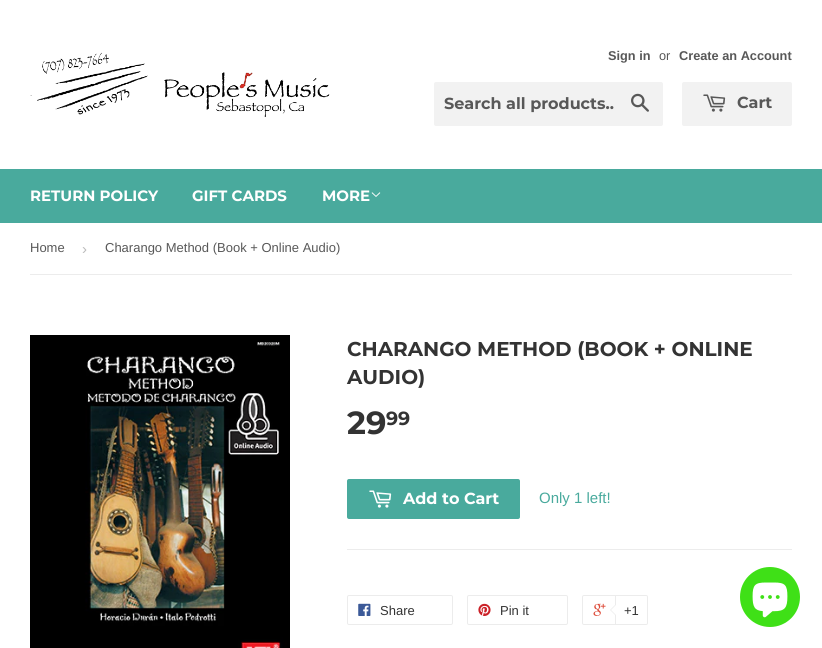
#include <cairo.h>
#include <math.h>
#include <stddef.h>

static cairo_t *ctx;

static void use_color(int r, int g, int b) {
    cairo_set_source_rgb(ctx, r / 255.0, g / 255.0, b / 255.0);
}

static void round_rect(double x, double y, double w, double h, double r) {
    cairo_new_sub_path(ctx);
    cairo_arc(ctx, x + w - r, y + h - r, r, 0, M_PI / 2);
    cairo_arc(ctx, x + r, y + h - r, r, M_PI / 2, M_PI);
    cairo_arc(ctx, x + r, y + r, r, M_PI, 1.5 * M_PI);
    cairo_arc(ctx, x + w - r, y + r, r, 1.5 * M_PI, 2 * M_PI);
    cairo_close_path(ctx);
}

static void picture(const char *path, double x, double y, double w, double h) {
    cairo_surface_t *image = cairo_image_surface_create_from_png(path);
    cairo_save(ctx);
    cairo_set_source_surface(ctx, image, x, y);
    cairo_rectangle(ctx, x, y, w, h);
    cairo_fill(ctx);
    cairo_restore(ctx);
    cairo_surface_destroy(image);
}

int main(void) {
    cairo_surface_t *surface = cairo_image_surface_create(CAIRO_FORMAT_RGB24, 822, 648);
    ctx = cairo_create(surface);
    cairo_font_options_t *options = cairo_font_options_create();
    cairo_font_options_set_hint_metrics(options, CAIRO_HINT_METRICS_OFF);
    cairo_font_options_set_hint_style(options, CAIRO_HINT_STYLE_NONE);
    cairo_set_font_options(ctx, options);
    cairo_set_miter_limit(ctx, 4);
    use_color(255, 255, 255);
    cairo_paint(ctx);
    picture("img1.png", 30, 52, 300, 65);
    cairo_select_font_face(ctx, "Liberation Sans", CAIRO_FONT_SLANT_NORMAL, CAIRO_FONT_WEIGHT_BOLD);
    cairo_set_font_size(ctx, 12.75);
    use_color(88, 88, 88);
    cairo_move_to(ctx, 608, 60);
    cairo_show_text(ctx, "Sign in");
    cairo_select_font_face(ctx, "Liberation Sans", CAIRO_FONT_SLANT_NORMAL, CAIRO_FONT_WEIGHT_NORMAL);
    cairo_move_to(ctx, 659, 60);
    cairo_show_text(ctx, "or");
    cairo_select_font_face(ctx, "Liberation Sans", CAIRO_FONT_SLANT_NORMAL, CAIRO_FONT_WEIGHT_BOLD);
    cairo_move_to(ctx, 679, 60);
    cairo_show_text(ctx, "Create an Account");
    use_color(242, 242, 242);
    round_rect(434, 82, 229, 44, 2);
    cairo_fill(ctx);
    cairo_select_font_face(ctx, "Montserrat Thin", CAIRO_FONT_SLANT_NORMAL, CAIRO_FONT_WEIGHT_NORMAL);
    cairo_set_font_size(ctx, 16);
    use_color(88, 88, 88);
    cairo_move_to(ctx, 444, 109);
    cairo_show_text(ctx, "Search all products..");
    picture("img2.png", 631, 93, 18, 19);
    use_color(242, 242, 242);
    round_rect(682, 82, 110, 44, 2);
    cairo_fill(ctx);
    picture("img3.png", 703, 94, 23, 18);
    use_color(88, 88, 88);
    cairo_move_to(ctx, 737, 108);
    cairo_show_text(ctx, "Cart");
    use_color(73, 170, 157);
    cairo_rectangle(ctx, 0, 169, 822, 54);
    cairo_fill(ctx);
    cairo_set_font_size(ctx, 15);
    use_color(255, 255, 255);
    cairo_move_to(ctx, 30, 201);
    cairo_show_text(ctx, "RETURN POLICY");
    cairo_move_to(ctx, 192, 201);
    cairo_show_text(ctx, "GIFT CARDS");
    cairo_move_to(ctx, 322, 201);
    cairo_show_text(ctx, "MORE");
    picture("img4.png", 371, 192, 10, 5);
    use_color(236, 236, 236);
    cairo_rectangle(ctx, 30, 274, 762, 1);
    cairo_fill(ctx);
    cairo_select_font_face(ctx, "Liberation Sans", CAIRO_FONT_SLANT_NORMAL, CAIRO_FONT_WEIGHT_NORMAL);
    cairo_set_font_size(ctx, 13);
    use_color(88, 88, 88);
    cairo_move_to(ctx, 30, 252);
    cairo_show_text(ctx, "Home");
    cairo_set_font_size(ctx, 15);
    use_color(187, 187, 187);
    cairo_move_to(ctx, 82, 254);
    cairo_show_text(ctx, "›");
    cairo_set_font_size(ctx, 13);
    use_color(88, 88, 88);
    cairo_move_to(ctx, 105, 252);
    cairo_show_text(ctx, "Charango Method (Book + Online Audio)");
    picture("img5.png", 30, 335, 260, 313);
    cairo_select_font_face(ctx, "Montserrat Thin", CAIRO_FONT_SLANT_NORMAL, CAIRO_FONT_WEIGHT_NORMAL);
    cairo_set_font_size(ctx, 20);
    use_color(51, 51, 51);
    cairo_move_to(ctx, 347, 356);
    cairo_show_text(ctx, "CHARANGO METHOD (BOOK + ONLINE");
    cairo_move_to(ctx, 347, 384);
    cairo_show_text(ctx, "AUDIO)");
    cairo_set_font_size(ctx, 32);
    cairo_move_to(ctx, 347, 434);
    cairo_show_text(ctx, "29");
    cairo_set_font_size(ctx, 19);
    cairo_move_to(ctx, 386, 425);
    cairo_show_text(ctx, "99");
    use_color(73, 170, 157);
    round_rect(347, 479, 173, 40, 2);
    cairo_fill(ctx);
    picture("img6.png", 369, 490, 23, 18);
    cairo_set_font_size(ctx, 16);
    use_color(255, 255, 255);
    cairo_move_to(ctx, 403, 504);
    cairo_show_text(ctx, "Add to Cart");
    cairo_select_font_face(ctx, "Liberation Sans", CAIRO_FONT_SLANT_NORMAL, CAIRO_FONT_WEIGHT_NORMAL);
    cairo_set_font_size(ctx, 15);
    use_color(73, 170, 157);
    cairo_move_to(ctx, 539, 503);
    cairo_show_text(ctx, "Only 1 left!");
    use_color(236, 236, 236);
    cairo_rectangle(ctx, 347, 549, 445, 1);
    cairo_fill(ctx);
    round_rect(347.5, 595.5, 105, 29, 1.5);
    cairo_set_line_width(ctx, 1);
    cairo_stroke(ctx);
    picture("img7.png", 358, 603, 13, 13);
    cairo_set_font_size(ctx, 13);
    use_color(51, 51, 51);
    cairo_move_to(ctx, 380, 615);
    cairo_show_text(ctx, "Share");
    round_rect(467.5, 595.5, 100, 29, 1.5);
    use_color(236, 236, 236);
    cairo_stroke(ctx);
    picture("img8.png", 478, 603, 13, 13);
    use_color(51, 51, 51);
    cairo_move_to(ctx, 500, 615);
    cairo_show_text(ctx, "Pin it");
    round_rect(582.5, 595.5, 64, 29, 1.5);
    use_color(236, 236, 236);
    cairo_stroke(ctx);
    picture("img9.png", 593, 603, 13, 13);
    use_color(255, 255, 255);
    cairo_new_path(ctx);
    cairo_move_to(ctx, 615.5, 595.5);
    cairo_line_to(ctx, 646, 595.5);
    cairo_curve_to(ctx, 647, 595.5, 647.5, 596, 647.5, 597);
    cairo_line_to(ctx, 647.5, 623);
    cairo_curve_to(ctx, 647.5, 624, 647, 624.5, 646, 624.5);
    cairo_line_to(ctx, 615.5, 624.5);
    cairo_close_path(ctx);
    cairo_fill_preserve(ctx);
    use_color(236, 236, 236);
    cairo_stroke(ctx);
    cairo_new_path(ctx);
    cairo_move_to(ctx, 616, 604);
    cairo_line_to(ctx, 616, 616);
    cairo_line_to(ctx, 610, 610);
    cairo_close_path(ctx);
    cairo_fill(ctx);
    use_color(255, 255, 255);
    cairo_new_path(ctx);
    cairo_move_to(ctx, 617, 604);
    cairo_line_to(ctx, 617, 616);
    cairo_line_to(ctx, 611, 610);
    cairo_close_path(ctx);
    cairo_fill(ctx);
    use_color(51, 51, 51);
    cairo_move_to(ctx, 624, 615);
    cairo_show_text(ctx, "+1");
    use_color(63, 224, 23);
    cairo_new_path(ctx);
    cairo_arc(ctx, 770, 597, 30, 0, 2 * M_PI);
    cairo_fill(ctx);
    picture("img10.png", 752, 582, 36, 36);
    cairo_surface_write_to_png(surface, "result.png");
    cairo_font_options_destroy(options);
    cairo_destroy(ctx);
    cairo_surface_destroy(surface);
    return 0;
}
